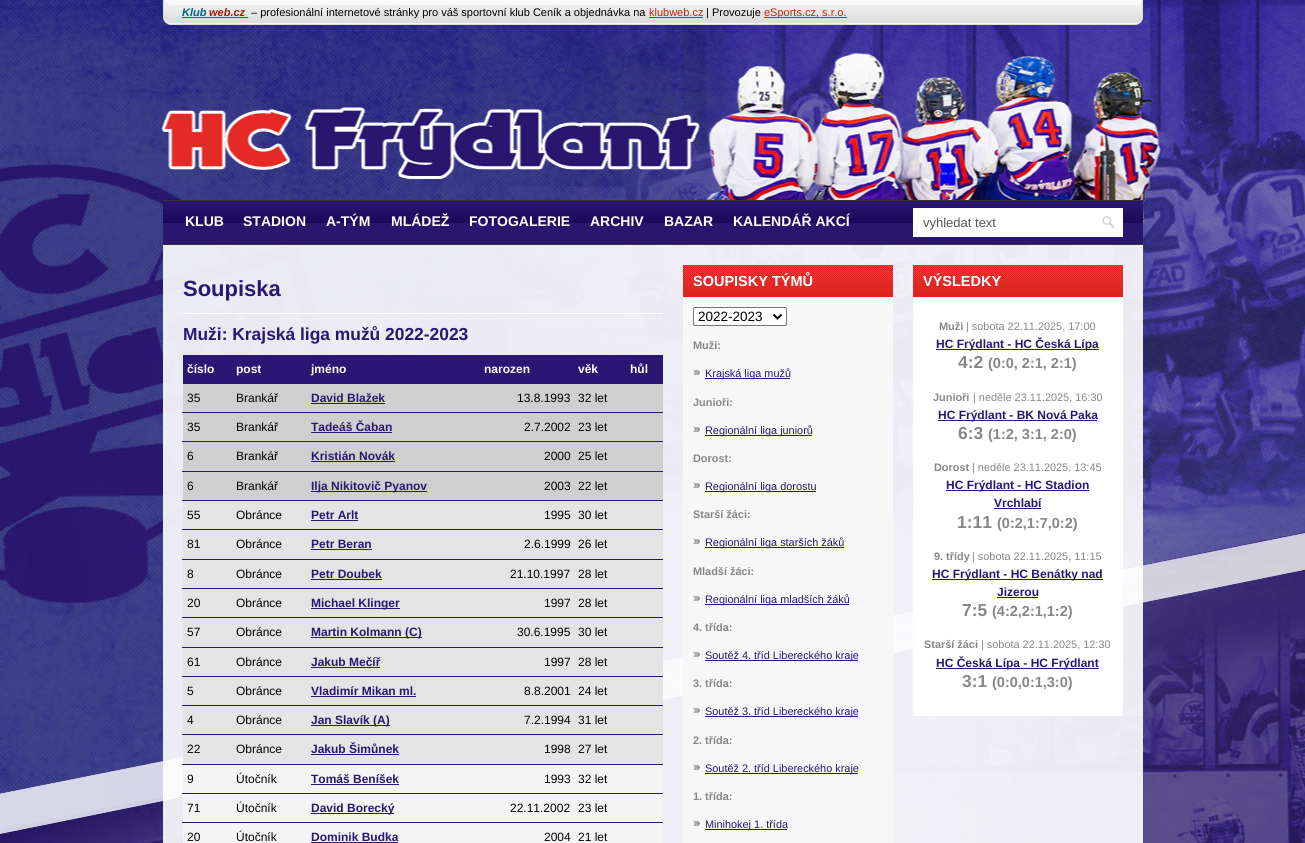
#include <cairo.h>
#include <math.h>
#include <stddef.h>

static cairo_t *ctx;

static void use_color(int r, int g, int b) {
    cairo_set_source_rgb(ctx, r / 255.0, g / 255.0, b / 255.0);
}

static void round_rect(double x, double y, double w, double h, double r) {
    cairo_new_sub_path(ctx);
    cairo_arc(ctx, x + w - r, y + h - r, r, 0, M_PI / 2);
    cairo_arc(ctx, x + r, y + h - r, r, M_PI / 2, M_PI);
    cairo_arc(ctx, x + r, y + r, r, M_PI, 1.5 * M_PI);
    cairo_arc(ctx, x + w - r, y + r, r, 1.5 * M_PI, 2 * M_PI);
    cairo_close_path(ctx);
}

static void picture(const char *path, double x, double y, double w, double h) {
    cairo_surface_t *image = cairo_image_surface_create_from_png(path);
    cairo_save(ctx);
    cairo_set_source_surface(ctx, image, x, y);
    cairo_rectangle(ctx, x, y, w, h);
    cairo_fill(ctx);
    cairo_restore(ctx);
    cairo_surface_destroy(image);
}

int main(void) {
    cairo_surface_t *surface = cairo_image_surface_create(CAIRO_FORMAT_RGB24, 1305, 843);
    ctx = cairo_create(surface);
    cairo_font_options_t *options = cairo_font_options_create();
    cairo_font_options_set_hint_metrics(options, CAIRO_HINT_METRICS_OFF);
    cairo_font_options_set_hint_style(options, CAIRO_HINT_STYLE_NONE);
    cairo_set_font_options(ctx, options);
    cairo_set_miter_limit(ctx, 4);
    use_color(255, 255, 255);
    cairo_paint(ctx);
    picture("img1.png", 0, 0, 1305, 843);
    picture("img2.png", 161, 53, 1000, 169);
    picture("img3.png", 163, 0, 980, 25);
    cairo_select_font_face(ctx, "Liberation Sans", CAIRO_FONT_SLANT_ITALIC, CAIRO_FONT_WEIGHT_BOLD);
    cairo_set_font_size(ctx, 11);
    use_color(0, 98, 135);
    cairo_move_to(ctx, 182, 16);
    cairo_show_text(ctx, "Klub");
    use_color(201, 37, 0);
    cairo_rectangle(ctx, 182, 17, 66, 1);
    cairo_fill(ctx);
    use_color(166, 29, 0);
    cairo_move_to(ctx, 209, 16);
    cairo_show_text(ctx, "web.cz");
    cairo_select_font_face(ctx, "Liberation Sans", CAIRO_FONT_SLANT_NORMAL, CAIRO_FONT_WEIGHT_NORMAL);
    use_color(0, 0, 0);
    cairo_move_to(ctx, 251, 16);
    cairo_show_text(ctx, "– profesionální internetové stránky pro váš sportovní klub Ceník a objednávka na");
    use_color(201, 37, 0);
    cairo_move_to(ctx, 649, 16);
    cairo_show_text(ctx, "klubweb.cz");
    cairo_rectangle(ctx, 649, 17, 54, 1);
    cairo_fill(ctx);
    use_color(0, 0, 0);
    cairo_move_to(ctx, 706, 16);
    cairo_show_text(ctx, "| Provozuje");
    use_color(201, 37, 0);
    cairo_rectangle(ctx, 764, 17, 83, 1);
    cairo_fill(ctx);
    cairo_move_to(ctx, 764, 16);
    cairo_show_text(ctx, "eSports.cz, s.r.o.");
    picture("img4.png", 163, 200, 980, 45);
    cairo_select_font_face(ctx, "Liberation Sans", CAIRO_FONT_SLANT_NORMAL, CAIRO_FONT_WEIGHT_BOLD);
    cairo_set_font_size(ctx, 14);
    use_color(255, 255, 255);
    cairo_move_to(ctx, 185, 226);
    cairo_show_text(ctx, "KLUB");
    cairo_move_to(ctx, 243, 226);
    cairo_show_text(ctx, "STADION");
    cairo_move_to(ctx, 326, 226);
    cairo_show_text(ctx, "A-TÝM");
    cairo_move_to(ctx, 391, 226);
    cairo_show_text(ctx, "MLÁDEŽ");
    cairo_move_to(ctx, 469, 226);
    cairo_show_text(ctx, "FOTOGALERIE");
    cairo_move_to(ctx, 590, 226);
    cairo_show_text(ctx, "ARCHIV");
    cairo_move_to(ctx, 664, 226);
    cairo_show_text(ctx, "BAZAR");
    cairo_move_to(ctx, 733, 226);
    cairo_show_text(ctx, "KALENDÁŘ AKCÍ");
    cairo_rectangle(ctx, 913, 208, 210, 29);
    cairo_fill(ctx);
    picture("img5.png", 1102, 216, 18, 19);
    cairo_select_font_face(ctx, "Liberation Sans", CAIRO_FONT_SLANT_NORMAL, CAIRO_FONT_WEIGHT_NORMAL);
    cairo_set_font_size(ctx, 13);
    use_color(85, 85, 85);
    cairo_move_to(ctx, 923, 227);
    cairo_show_text(ctx, "vyhledat text");
    cairo_set_source_rgba(ctx, 1, 1, 1, 0.9);
    cairo_rectangle(ctx, 163, 245, 980, 598);
    cairo_fill(ctx);
    cairo_select_font_face(ctx, "Liberation Sans", CAIRO_FONT_SLANT_NORMAL, CAIRO_FONT_WEIGHT_BOLD);
    cairo_set_font_size(ctx, 22);
    use_color(42, 23, 115);
    cairo_move_to(ctx, 183, 296);
    cairo_show_text(ctx, "Soupiska");
    use_color(255, 255, 254);
    cairo_rectangle(ctx, 183, 313, 480, 1);
    cairo_fill(ctx);
    cairo_set_font_size(ctx, 17.4);
    use_color(42, 23, 115);
    cairo_move_to(ctx, 183, 340);
    cairo_show_text(ctx, "Muži: Krajská liga mužů 2022-2023");
    use_color(228, 228, 229);
    cairo_rectangle(ctx, 183, 501, 480, 263);
    cairo_fill(ctx);
    use_color(42, 23, 115);
    cairo_rectangle(ctx, 183, 355, 480, 29);
    cairo_fill(ctx);
    cairo_set_font_size(ctx, 12);
    use_color(255, 255, 255);
    cairo_move_to(ctx, 187, 373);
    cairo_show_text(ctx, "číslo");
    cairo_move_to(ctx, 236, 373);
    cairo_show_text(ctx, "post");
    cairo_move_to(ctx, 311, 373);
    cairo_show_text(ctx, "jméno");
    cairo_move_to(ctx, 484, 373);
    cairo_show_text(ctx, "narozen");
    cairo_move_to(ctx, 578, 373);
    cairo_show_text(ctx, "věk");
    cairo_move_to(ctx, 630, 373);
    cairo_show_text(ctx, "hůl");
    use_color(208, 207, 207);
    cairo_rectangle(ctx, 183, 384, 480, 28);
    cairo_fill(ctx);
    cairo_select_font_face(ctx, "Liberation Sans", CAIRO_FONT_SLANT_NORMAL, CAIRO_FONT_WEIGHT_NORMAL);
    use_color(0, 0, 0);
    cairo_move_to(ctx, 187, 402);
    cairo_show_text(ctx, "35");
    cairo_move_to(ctx, 236, 402);
    cairo_show_text(ctx, "Brankář");
    cairo_select_font_face(ctx, "Liberation Sans", CAIRO_FONT_SLANT_NORMAL, CAIRO_FONT_WEIGHT_BOLD);
    use_color(42, 23, 115);
    cairo_move_to(ctx, 311, 402);
    cairo_show_text(ctx, "David Blažek");
    cairo_rectangle(ctx, 311, 403, 74, 1);
    cairo_fill(ctx);
    cairo_select_font_face(ctx, "Liberation Sans", CAIRO_FONT_SLANT_NORMAL, CAIRO_FONT_WEIGHT_NORMAL);
    use_color(0, 0, 0);
    cairo_move_to(ctx, 517, 402);
    cairo_show_text(ctx, "13.8.1993");
    cairo_move_to(ctx, 578, 402);
    cairo_show_text(ctx, "32 let");
    use_color(42, 23, 115);
    cairo_rectangle(ctx, 182, 412, 481, 1);
    cairo_fill(ctx);
    use_color(208, 207, 207);
    cairo_rectangle(ctx, 183, 413, 480, 28);
    cairo_fill(ctx);
    use_color(0, 0, 0);
    cairo_move_to(ctx, 187, 431);
    cairo_show_text(ctx, "35");
    cairo_move_to(ctx, 236, 431);
    cairo_show_text(ctx, "Brankář");
    cairo_select_font_face(ctx, "Liberation Sans", CAIRO_FONT_SLANT_NORMAL, CAIRO_FONT_WEIGHT_BOLD);
    use_color(42, 23, 115);
    cairo_move_to(ctx, 311, 431);
    cairo_show_text(ctx, "Tadeáš Čaban");
    cairo_rectangle(ctx, 311, 432, 81, 1);
    cairo_fill(ctx);
    cairo_select_font_face(ctx, "Liberation Sans", CAIRO_FONT_SLANT_NORMAL, CAIRO_FONT_WEIGHT_NORMAL);
    use_color(0, 0, 0);
    cairo_move_to(ctx, 524, 431);
    cairo_show_text(ctx, "2.7.2002");
    cairo_move_to(ctx, 578, 431);
    cairo_show_text(ctx, "23 let");
    use_color(42, 23, 115);
    cairo_rectangle(ctx, 182, 441, 481, 1);
    cairo_fill(ctx);
    use_color(208, 207, 207);
    cairo_rectangle(ctx, 183, 442, 480, 29);
    cairo_fill(ctx);
    use_color(0, 0, 0);
    cairo_move_to(ctx, 187, 460);
    cairo_show_text(ctx, "6");
    cairo_move_to(ctx, 236, 460);
    cairo_show_text(ctx, "Brankář");
    cairo_select_font_face(ctx, "Liberation Sans", CAIRO_FONT_SLANT_NORMAL, CAIRO_FONT_WEIGHT_BOLD);
    use_color(42, 23, 115);
    cairo_move_to(ctx, 311, 460);
    cairo_show_text(ctx, "Kristián Novák");
    cairo_rectangle(ctx, 311, 461, 84, 1);
    cairo_fill(ctx);
    cairo_select_font_face(ctx, "Liberation Sans", CAIRO_FONT_SLANT_NORMAL, CAIRO_FONT_WEIGHT_NORMAL);
    use_color(0, 0, 0);
    cairo_move_to(ctx, 544, 460);
    cairo_show_text(ctx, "2000");
    cairo_move_to(ctx, 578, 460);
    cairo_show_text(ctx, "25 let");
    use_color(42, 23, 115);
    cairo_rectangle(ctx, 182, 471, 481, 1);
    cairo_fill(ctx);
    use_color(208, 207, 207);
    cairo_rectangle(ctx, 183, 472, 480, 28);
    cairo_fill(ctx);
    use_color(0, 0, 0);
    cairo_move_to(ctx, 187, 490);
    cairo_show_text(ctx, "6");
    cairo_move_to(ctx, 236, 490);
    cairo_show_text(ctx, "Brankář");
    use_color(42, 23, 115);
    cairo_rectangle(ctx, 311, 491, 116, 1);
    cairo_fill(ctx);
    cairo_select_font_face(ctx, "Liberation Sans", CAIRO_FONT_SLANT_NORMAL, CAIRO_FONT_WEIGHT_BOLD);
    cairo_move_to(ctx, 311, 490);
    cairo_show_text(ctx, "Ilja Nikitovič Pyanov");
    cairo_select_font_face(ctx, "Liberation Sans", CAIRO_FONT_SLANT_NORMAL, CAIRO_FONT_WEIGHT_NORMAL);
    use_color(0, 0, 0);
    cairo_move_to(ctx, 544, 490);
    cairo_show_text(ctx, "2003");
    cairo_move_to(ctx, 578, 490);
    cairo_show_text(ctx, "22 let");
    use_color(42, 23, 115);
    cairo_rectangle(ctx, 182, 500, 481, 1);
    cairo_fill(ctx);
    use_color(0, 0, 0);
    cairo_move_to(ctx, 187, 519);
    cairo_show_text(ctx, "55");
    cairo_move_to(ctx, 236, 519);
    cairo_show_text(ctx, "Obránce");
    cairo_select_font_face(ctx, "Liberation Sans", CAIRO_FONT_SLANT_NORMAL, CAIRO_FONT_WEIGHT_BOLD);
    use_color(42, 23, 115);
    cairo_move_to(ctx, 311, 519);
    cairo_show_text(ctx, "Petr Arlt");
    cairo_rectangle(ctx, 311, 520, 47, 1);
    cairo_fill(ctx);
    cairo_select_font_face(ctx, "Liberation Sans", CAIRO_FONT_SLANT_NORMAL, CAIRO_FONT_WEIGHT_NORMAL);
    use_color(0, 0, 0);
    cairo_move_to(ctx, 544, 519);
    cairo_show_text(ctx, "1995");
    cairo_move_to(ctx, 578, 519);
    cairo_show_text(ctx, "30 let");
    use_color(42, 23, 115);
    cairo_rectangle(ctx, 182, 529, 481, 1);
    cairo_fill(ctx);
    use_color(0, 0, 0);
    cairo_move_to(ctx, 187, 548);
    cairo_show_text(ctx, "81");
    cairo_move_to(ctx, 236, 548);
    cairo_show_text(ctx, "Obránce");
    cairo_select_font_face(ctx, "Liberation Sans", CAIRO_FONT_SLANT_NORMAL, CAIRO_FONT_WEIGHT_BOLD);
    use_color(42, 23, 115);
    cairo_move_to(ctx, 311, 548);
    cairo_show_text(ctx, "Petr Beran");
    cairo_rectangle(ctx, 311, 549, 61, 1);
    cairo_fill(ctx);
    cairo_select_font_face(ctx, "Liberation Sans", CAIRO_FONT_SLANT_NORMAL, CAIRO_FONT_WEIGHT_NORMAL);
    use_color(0, 0, 0);
    cairo_move_to(ctx, 524, 548);
    cairo_show_text(ctx, "2.6.1999");
    cairo_move_to(ctx, 578, 548);
    cairo_show_text(ctx, "26 let");
    use_color(42, 23, 115);
    cairo_rectangle(ctx, 182, 559, 481, 1);
    cairo_fill(ctx);
    use_color(0, 0, 0);
    cairo_move_to(ctx, 187, 578);
    cairo_show_text(ctx, "8");
    cairo_move_to(ctx, 236, 578);
    cairo_show_text(ctx, "Obránce");
    cairo_select_font_face(ctx, "Liberation Sans", CAIRO_FONT_SLANT_NORMAL, CAIRO_FONT_WEIGHT_BOLD);
    use_color(42, 23, 115);
    cairo_move_to(ctx, 311, 578);
    cairo_show_text(ctx, "Petr Doubek");
    cairo_rectangle(ctx, 311, 579, 71, 1);
    cairo_fill(ctx);
    cairo_select_font_face(ctx, "Liberation Sans", CAIRO_FONT_SLANT_NORMAL, CAIRO_FONT_WEIGHT_NORMAL);
    use_color(0, 0, 0);
    cairo_move_to(ctx, 510, 578);
    cairo_show_text(ctx, "21.10.1997");
    cairo_move_to(ctx, 578, 578);
    cairo_show_text(ctx, "28 let");
    use_color(42, 23, 115);
    cairo_rectangle(ctx, 182, 588, 481, 1);
    cairo_fill(ctx);
    use_color(0, 0, 0);
    cairo_move_to(ctx, 187, 607);
    cairo_show_text(ctx, "20");
    cairo_move_to(ctx, 236, 607);
    cairo_show_text(ctx, "Obránce");
    use_color(42, 23, 115);
    cairo_rectangle(ctx, 311, 608, 89, 1);
    cairo_fill(ctx);
    cairo_select_font_face(ctx, "Liberation Sans", CAIRO_FONT_SLANT_NORMAL, CAIRO_FONT_WEIGHT_BOLD);
    cairo_move_to(ctx, 311, 607);
    cairo_show_text(ctx, "Michael Klinger");
    cairo_select_font_face(ctx, "Liberation Sans", CAIRO_FONT_SLANT_NORMAL, CAIRO_FONT_WEIGHT_NORMAL);
    use_color(0, 0, 0);
    cairo_move_to(ctx, 544, 607);
    cairo_show_text(ctx, "1997");
    cairo_move_to(ctx, 578, 607);
    cairo_show_text(ctx, "28 let");
    use_color(42, 23, 115);
    cairo_rectangle(ctx, 182, 617, 481, 1);
    cairo_fill(ctx);
    use_color(0, 0, 0);
    cairo_move_to(ctx, 187, 636);
    cairo_show_text(ctx, "57");
    cairo_move_to(ctx, 236, 636);
    cairo_show_text(ctx, "Obránce");
    use_color(42, 23, 115);
    cairo_rectangle(ctx, 311, 637, 111, 1);
    cairo_fill(ctx);
    cairo_select_font_face(ctx, "Liberation Sans", CAIRO_FONT_SLANT_NORMAL, CAIRO_FONT_WEIGHT_BOLD);
    cairo_move_to(ctx, 311, 636);
    cairo_show_text(ctx, "Martin Kolmann (C)");
    cairo_select_font_face(ctx, "Liberation Sans", CAIRO_FONT_SLANT_NORMAL, CAIRO_FONT_WEIGHT_NORMAL);
    use_color(0, 0, 0);
    cairo_move_to(ctx, 517, 636);
    cairo_show_text(ctx, "30.6.1995");
    cairo_move_to(ctx, 578, 636);
    cairo_show_text(ctx, "30 let");
    use_color(42, 23, 115);
    cairo_rectangle(ctx, 182, 647, 481, 1);
    cairo_fill(ctx);
    use_color(0, 0, 0);
    cairo_move_to(ctx, 187, 666);
    cairo_show_text(ctx, "61");
    cairo_move_to(ctx, 236, 666);
    cairo_show_text(ctx, "Obránce");
    cairo_select_font_face(ctx, "Liberation Sans", CAIRO_FONT_SLANT_NORMAL, CAIRO_FONT_WEIGHT_BOLD);
    use_color(42, 23, 115);
    cairo_move_to(ctx, 311, 666);
    cairo_show_text(ctx, "Jakub Mečíř");
    cairo_rectangle(ctx, 311, 667, 69, 1);
    cairo_fill(ctx);
    cairo_select_font_face(ctx, "Liberation Sans", CAIRO_FONT_SLANT_NORMAL, CAIRO_FONT_WEIGHT_NORMAL);
    use_color(0, 0, 0);
    cairo_move_to(ctx, 544, 666);
    cairo_show_text(ctx, "1997");
    cairo_move_to(ctx, 578, 666);
    cairo_show_text(ctx, "28 let");
    use_color(42, 23, 115);
    cairo_rectangle(ctx, 182, 676, 481, 1);
    cairo_fill(ctx);
    use_color(0, 0, 0);
    cairo_move_to(ctx, 187, 695);
    cairo_show_text(ctx, "5");
    cairo_move_to(ctx, 236, 695);
    cairo_show_text(ctx, "Obránce");
    cairo_select_font_face(ctx, "Liberation Sans", CAIRO_FONT_SLANT_NORMAL, CAIRO_FONT_WEIGHT_BOLD);
    use_color(42, 23, 115);
    cairo_move_to(ctx, 311, 695);
    cairo_show_text(ctx, "Vladimír Mikan ml.");
    cairo_rectangle(ctx, 311, 696, 105, 1);
    cairo_fill(ctx);
    cairo_select_font_face(ctx, "Liberation Sans", CAIRO_FONT_SLANT_NORMAL, CAIRO_FONT_WEIGHT_NORMAL);
    use_color(0, 0, 0);
    cairo_move_to(ctx, 524, 695);
    cairo_show_text(ctx, "8.8.2001");
    cairo_move_to(ctx, 578, 695);
    cairo_show_text(ctx, "24 let");
    use_color(42, 23, 115);
    cairo_rectangle(ctx, 182, 705, 481, 1);
    cairo_fill(ctx);
    use_color(0, 0, 0);
    cairo_move_to(ctx, 187, 724);
    cairo_show_text(ctx, "4");
    cairo_move_to(ctx, 236, 724);
    cairo_show_text(ctx, "Obránce");
    use_color(42, 23, 115);
    cairo_rectangle(ctx, 311, 725, 79, 1);
    cairo_fill(ctx);
    cairo_select_font_face(ctx, "Liberation Sans", CAIRO_FONT_SLANT_NORMAL, CAIRO_FONT_WEIGHT_BOLD);
    cairo_move_to(ctx, 311, 724);
    cairo_show_text(ctx, "Jan Slavík (A)");
    cairo_select_font_face(ctx, "Liberation Sans", CAIRO_FONT_SLANT_NORMAL, CAIRO_FONT_WEIGHT_NORMAL);
    use_color(0, 0, 0);
    cairo_move_to(ctx, 524, 724);
    cairo_show_text(ctx, "7.2.1994");
    cairo_move_to(ctx, 578, 724);
    cairo_show_text(ctx, "31 let");
    use_color(42, 23, 115);
    cairo_rectangle(ctx, 182, 734, 481, 1);
    cairo_fill(ctx);
    use_color(0, 0, 0);
    cairo_move_to(ctx, 187, 753);
    cairo_show_text(ctx, "22");
    cairo_move_to(ctx, 236, 753);
    cairo_show_text(ctx, "Obránce");
    cairo_select_font_face(ctx, "Liberation Sans", CAIRO_FONT_SLANT_NORMAL, CAIRO_FONT_WEIGHT_BOLD);
    use_color(42, 23, 115);
    cairo_move_to(ctx, 311, 753);
    cairo_show_text(ctx, "Jakub Šimůnek");
    cairo_rectangle(ctx, 311, 754, 88, 1);
    cairo_fill(ctx);
    cairo_select_font_face(ctx, "Liberation Sans", CAIRO_FONT_SLANT_NORMAL, CAIRO_FONT_WEIGHT_NORMAL);
    use_color(0, 0, 0);
    cairo_move_to(ctx, 544, 753);
    cairo_show_text(ctx, "1998");
    cairo_move_to(ctx, 578, 753);
    cairo_show_text(ctx, "27 let");
    use_color(42, 23, 115);
    cairo_rectangle(ctx, 182, 764, 481, 1);
    cairo_fill(ctx);
    use_color(244, 244, 244);
    cairo_rectangle(ctx, 183, 765, 480, 28);
    cairo_fill(ctx);
    use_color(0, 0, 0);
    cairo_move_to(ctx, 187, 783);
    cairo_show_text(ctx, "9");
    cairo_move_to(ctx, 236, 783);
    cairo_show_text(ctx, "Útočník");
    cairo_select_font_face(ctx, "Liberation Sans", CAIRO_FONT_SLANT_NORMAL, CAIRO_FONT_WEIGHT_BOLD);
    use_color(42, 23, 115);
    cairo_move_to(ctx, 311, 783);
    cairo_show_text(ctx, "Tomáš Beníšek");
    cairo_rectangle(ctx, 311, 784, 88, 1);
    cairo_fill(ctx);
    cairo_select_font_face(ctx, "Liberation Sans", CAIRO_FONT_SLANT_NORMAL, CAIRO_FONT_WEIGHT_NORMAL);
    use_color(0, 0, 0);
    cairo_move_to(ctx, 544, 783);
    cairo_show_text(ctx, "1993");
    cairo_move_to(ctx, 578, 783);
    cairo_show_text(ctx, "32 let");
    use_color(42, 23, 115);
    cairo_rectangle(ctx, 182, 793, 481, 1);
    cairo_fill(ctx);
    use_color(244, 244, 244);
    cairo_rectangle(ctx, 183, 794, 480, 28);
    cairo_fill(ctx);
    use_color(0, 0, 0);
    cairo_move_to(ctx, 187, 812);
    cairo_show_text(ctx, "71");
    cairo_move_to(ctx, 236, 812);
    cairo_show_text(ctx, "Útočník");
    use_color(42, 23, 115);
    cairo_rectangle(ctx, 311, 813, 83, 1);
    cairo_fill(ctx);
    cairo_select_font_face(ctx, "Liberation Sans", CAIRO_FONT_SLANT_NORMAL, CAIRO_FONT_WEIGHT_BOLD);
    cairo_move_to(ctx, 311, 812);
    cairo_show_text(ctx, "David Borecký");
    cairo_select_font_face(ctx, "Liberation Sans", CAIRO_FONT_SLANT_NORMAL, CAIRO_FONT_WEIGHT_NORMAL);
    use_color(0, 0, 0);
    cairo_move_to(ctx, 510, 812);
    cairo_show_text(ctx, "22.11.2002");
    cairo_move_to(ctx, 578, 812);
    cairo_show_text(ctx, "23 let");
    use_color(42, 23, 115);
    cairo_rectangle(ctx, 182, 822, 481, 1);
    cairo_fill(ctx);
    use_color(244, 244, 244);
    cairo_rectangle(ctx, 183, 823, 480, 20);
    cairo_fill(ctx);
    use_color(0, 0, 0);
    cairo_move_to(ctx, 187, 841);
    cairo_show_text(ctx, "20");
    cairo_move_to(ctx, 236, 841);
    cairo_show_text(ctx, "Útočník");
    cairo_select_font_face(ctx, "Liberation Sans", CAIRO_FONT_SLANT_NORMAL, CAIRO_FONT_WEIGHT_BOLD);
    use_color(42, 23, 115);
    cairo_move_to(ctx, 311, 841);
    cairo_show_text(ctx, "Dominik Budka");
    cairo_rectangle(ctx, 311, 842, 87, 1);
    cairo_fill(ctx);
    cairo_select_font_face(ctx, "Liberation Sans", CAIRO_FONT_SLANT_NORMAL, CAIRO_FONT_WEIGHT_NORMAL);
    use_color(0, 0, 0);
    cairo_move_to(ctx, 544, 841);
    cairo_show_text(ctx, "2004");
    cairo_move_to(ctx, 578, 841);
    cairo_show_text(ctx, "21 let");
    picture("img6.png", 683, 265, 210, 32);
    cairo_select_font_face(ctx, "Liberation Sans", CAIRO_FONT_SLANT_NORMAL, CAIRO_FONT_WEIGHT_BOLD);
    cairo_set_font_size(ctx, 14.5);
    use_color(255, 255, 255);
    cairo_move_to(ctx, 693, 286);
    cairo_show_text(ctx, "SOUPISKY TÝMŮ");
    use_color(247, 247, 247);
    cairo_rectangle(ctx, 683, 297, 210, 546);
    cairo_fill(ctx);
    use_color(255, 255, 255);
    round_rect(693.5, 307.5, 93, 18, 1.5);
    cairo_fill_preserve(ctx);
    use_color(118, 118, 118);
    cairo_set_line_width(ctx, 1);
    cairo_stroke(ctx);
    cairo_new_path(ctx);
    cairo_move_to(ctx, 773.5, 314.5);
    cairo_line_to(ctx, 777.5, 318.5);
    cairo_line_to(ctx, 781.5, 314.5);
    use_color(0, 0, 0);
    cairo_set_line_width(ctx, 2);
    cairo_stroke(ctx);
    cairo_select_font_face(ctx, "Liberation Sans", CAIRO_FONT_SLANT_NORMAL, CAIRO_FONT_WEIGHT_NORMAL);
    cairo_set_font_size(ctx, 13.5);
    cairo_move_to(ctx, 698, 321);
    cairo_show_text(ctx, "2022-2023");
    cairo_select_font_face(ctx, "Liberation Sans", CAIRO_FONT_SLANT_NORMAL, CAIRO_FONT_WEIGHT_BOLD);
    cairo_set_font_size(ctx, 10.9);
    use_color(135, 135, 135);
    cairo_move_to(ctx, 693, 349);
    cairo_show_text(ctx, "Muži:");
    picture("img7.png", 693, 370, 7, 5);
    use_color(42, 23, 115);
    cairo_rectangle(ctx, 705, 378, 85, 1);
    cairo_fill(ctx);
    cairo_select_font_face(ctx, "Liberation Sans", CAIRO_FONT_SLANT_NORMAL, CAIRO_FONT_WEIGHT_NORMAL);
    cairo_move_to(ctx, 705, 377);
    cairo_show_text(ctx, "Krajská liga mužů");
    cairo_select_font_face(ctx, "Liberation Sans", CAIRO_FONT_SLANT_NORMAL, CAIRO_FONT_WEIGHT_BOLD);
    use_color(135, 135, 135);
    cairo_move_to(ctx, 693, 406);
    cairo_show_text(ctx, "Junioři:");
    picture("img7.png", 693, 427, 7, 5);
    use_color(42, 23, 115);
    cairo_rectangle(ctx, 705, 435, 107, 1);
    cairo_fill(ctx);
    cairo_select_font_face(ctx, "Liberation Sans", CAIRO_FONT_SLANT_NORMAL, CAIRO_FONT_WEIGHT_NORMAL);
    cairo_move_to(ctx, 705, 434);
    cairo_show_text(ctx, "Regionální liga juniorů");
    cairo_select_font_face(ctx, "Liberation Sans", CAIRO_FONT_SLANT_NORMAL, CAIRO_FONT_WEIGHT_BOLD);
    use_color(135, 135, 135);
    cairo_move_to(ctx, 693, 462);
    cairo_show_text(ctx, "Dorost:");
    picture("img7.png", 693, 483, 7, 5);
    use_color(42, 23, 115);
    cairo_rectangle(ctx, 705, 491, 111, 1);
    cairo_fill(ctx);
    cairo_select_font_face(ctx, "Liberation Sans", CAIRO_FONT_SLANT_NORMAL, CAIRO_FONT_WEIGHT_NORMAL);
    cairo_move_to(ctx, 705, 490);
    cairo_show_text(ctx, "Regionální liga dorostu");
    cairo_select_font_face(ctx, "Liberation Sans", CAIRO_FONT_SLANT_NORMAL, CAIRO_FONT_WEIGHT_BOLD);
    use_color(135, 135, 135);
    cairo_move_to(ctx, 693, 518);
    cairo_show_text(ctx, "Starší žáci:");
    picture("img7.png", 693, 539, 7, 5);
    use_color(42, 23, 115);
    cairo_rectangle(ctx, 705, 547, 139, 1);
    cairo_fill(ctx);
    cairo_select_font_face(ctx, "Liberation Sans", CAIRO_FONT_SLANT_NORMAL, CAIRO_FONT_WEIGHT_NORMAL);
    cairo_move_to(ctx, 705, 546);
    cairo_show_text(ctx, "Regionální liga starších žáků");
    cairo_select_font_face(ctx, "Liberation Sans", CAIRO_FONT_SLANT_NORMAL, CAIRO_FONT_WEIGHT_BOLD);
    use_color(135, 135, 135);
    cairo_move_to(ctx, 693, 575);
    cairo_show_text(ctx, "Mladší žáci:");
    picture("img7.png", 693, 596, 7, 5);
    use_color(42, 23, 115);
    cairo_rectangle(ctx, 705, 604, 144, 1);
    cairo_fill(ctx);
    cairo_select_font_face(ctx, "Liberation Sans", CAIRO_FONT_SLANT_NORMAL, CAIRO_FONT_WEIGHT_NORMAL);
    cairo_move_to(ctx, 705, 603);
    cairo_show_text(ctx, "Regionální liga mladších žáků");
    cairo_select_font_face(ctx, "Liberation Sans", CAIRO_FONT_SLANT_NORMAL, CAIRO_FONT_WEIGHT_BOLD);
    use_color(135, 135, 135);
    cairo_move_to(ctx, 693, 631);
    cairo_show_text(ctx, "4. třída:");
    picture("img7.png", 693, 652, 7, 5);
    use_color(42, 23, 115);
    cairo_rectangle(ctx, 705, 660, 153, 1);
    cairo_fill(ctx);
    cairo_select_font_face(ctx, "Liberation Sans", CAIRO_FONT_SLANT_NORMAL, CAIRO_FONT_WEIGHT_NORMAL);
    cairo_move_to(ctx, 705, 659);
    cairo_show_text(ctx, "Soutěž 4. tříd Libereckého kraje");
    cairo_select_font_face(ctx, "Liberation Sans", CAIRO_FONT_SLANT_NORMAL, CAIRO_FONT_WEIGHT_BOLD);
    use_color(135, 135, 135);
    cairo_move_to(ctx, 693, 687);
    cairo_show_text(ctx, "3. třída:");
    picture("img7.png", 693, 708, 7, 5);
    use_color(42, 23, 115);
    cairo_rectangle(ctx, 705, 716, 153, 1);
    cairo_fill(ctx);
    cairo_select_font_face(ctx, "Liberation Sans", CAIRO_FONT_SLANT_NORMAL, CAIRO_FONT_WEIGHT_NORMAL);
    cairo_move_to(ctx, 705, 715);
    cairo_show_text(ctx, "Soutěž 3. tříd Libereckého kraje");
    cairo_select_font_face(ctx, "Liberation Sans", CAIRO_FONT_SLANT_NORMAL, CAIRO_FONT_WEIGHT_BOLD);
    use_color(135, 135, 135);
    cairo_move_to(ctx, 693, 744);
    cairo_show_text(ctx, "2. třída:");
    picture("img7.png", 693, 765, 7, 5);
    use_color(42, 23, 115);
    cairo_rectangle(ctx, 705, 773, 153, 1);
    cairo_fill(ctx);
    cairo_select_font_face(ctx, "Liberation Sans", CAIRO_FONT_SLANT_NORMAL, CAIRO_FONT_WEIGHT_NORMAL);
    cairo_move_to(ctx, 705, 772);
    cairo_show_text(ctx, "Soutěž 2. tříd Libereckého kraje");
    cairo_select_font_face(ctx, "Liberation Sans", CAIRO_FONT_SLANT_NORMAL, CAIRO_FONT_WEIGHT_BOLD);
    use_color(135, 135, 135);
    cairo_move_to(ctx, 693, 800);
    cairo_show_text(ctx, "1. třída:");
    picture("img7.png", 693, 821, 7, 5);
    use_color(42, 23, 115);
    cairo_rectangle(ctx, 705, 829, 82, 1);
    cairo_fill(ctx);
    cairo_select_font_face(ctx, "Liberation Sans", CAIRO_FONT_SLANT_NORMAL, CAIRO_FONT_WEIGHT_NORMAL);
    cairo_move_to(ctx, 705, 828);
    cairo_show_text(ctx, "Minihokej 1. třída");
    picture("img6.png", 913, 265, 210, 32);
    cairo_select_font_face(ctx, "Liberation Sans", CAIRO_FONT_SLANT_NORMAL, CAIRO_FONT_WEIGHT_BOLD);
    cairo_set_font_size(ctx, 14.5);
    use_color(255, 255, 255);
    cairo_move_to(ctx, 923, 286);
    cairo_show_text(ctx, "VÝSLEDKY");
    cairo_rectangle(ctx, 913, 297, 210, 419);
    cairo_fill(ctx);
    cairo_set_font_size(ctx, 10.9);
    use_color(135, 135, 135);
    cairo_move_to(ctx, 939, 330);
    cairo_show_text(ctx, "Muži");
    cairo_select_font_face(ctx, "Liberation Sans", CAIRO_FONT_SLANT_NORMAL, CAIRO_FONT_WEIGHT_NORMAL);
    cairo_move_to(ctx, 966, 330);
    cairo_show_text(ctx, "| sobota 22.11.2025, 17:00");
    use_color(42, 23, 115);
    cairo_rectangle(ctx, 936, 349, 163, 1);
    cairo_fill(ctx);
    cairo_select_font_face(ctx, "Liberation Sans", CAIRO_FONT_SLANT_NORMAL, CAIRO_FONT_WEIGHT_BOLD);
    cairo_set_font_size(ctx, 12);
    cairo_move_to(ctx, 936, 348);
    cairo_show_text(ctx, "HC Frýdlant - HC Česká Lípa");
    cairo_set_font_size(ctx, 17.4);
    use_color(135, 135, 135);
    cairo_move_to(ctx, 958, 368);
    cairo_show_text(ctx, "4:2");
    cairo_set_font_size(ctx, 14.5);
    cairo_move_to(ctx, 988, 368);
    cairo_show_text(ctx, "(0:0, 2:1, 2:1)");
    cairo_set_font_size(ctx, 10.9);
    cairo_move_to(ctx, 933, 401);
    cairo_show_text(ctx, "Junioři");
    cairo_select_font_face(ctx, "Liberation Sans", CAIRO_FONT_SLANT_NORMAL, CAIRO_FONT_WEIGHT_NORMAL);
    cairo_move_to(ctx, 973, 401);
    cairo_show_text(ctx, "| neděle 23.11.2025, 16:30");
    use_color(42, 23, 115);
    cairo_rectangle(ctx, 938, 420, 159, 1);
    cairo_fill(ctx);
    cairo_select_font_face(ctx, "Liberation Sans", CAIRO_FONT_SLANT_NORMAL, CAIRO_FONT_WEIGHT_BOLD);
    cairo_set_font_size(ctx, 12);
    cairo_move_to(ctx, 938, 419);
    cairo_show_text(ctx, "HC Frýdlant - BK Nová Paka");
    cairo_set_font_size(ctx, 17.4);
    use_color(135, 135, 135);
    cairo_move_to(ctx, 958, 439);
    cairo_show_text(ctx, "6:3");
    cairo_set_font_size(ctx, 14.5);
    cairo_move_to(ctx, 988, 439);
    cairo_show_text(ctx, "(1:2, 3:1, 2:0)");
    cairo_set_font_size(ctx, 10.9);
    cairo_move_to(ctx, 934, 471);
    cairo_show_text(ctx, "Dorost");
    cairo_select_font_face(ctx, "Liberation Sans", CAIRO_FONT_SLANT_NORMAL, CAIRO_FONT_WEIGHT_NORMAL);
    cairo_move_to(ctx, 972, 471);
    cairo_show_text(ctx, "| neděle 23.11.2025, 13:45");
    use_color(42, 23, 115);
    cairo_rectangle(ctx, 946, 490, 143, 1);
    cairo_fill(ctx);
    cairo_select_font_face(ctx, "Liberation Sans", CAIRO_FONT_SLANT_NORMAL, CAIRO_FONT_WEIGHT_BOLD);
    cairo_set_font_size(ctx, 12);
    cairo_move_to(ctx, 946, 489);
    cairo_show_text(ctx, "HC Frýdlant - HC Stadion");
    cairo_move_to(ctx, 994, 507);
    cairo_show_text(ctx, "Vrchlabí");
    cairo_rectangle(ctx, 994, 508, 47, 1);
    cairo_fill(ctx);
    cairo_set_font_size(ctx, 17.4);
    use_color(135, 135, 135);
    cairo_move_to(ctx, 957, 528);
    cairo_show_text(ctx, "1:11");
    cairo_set_font_size(ctx, 14.5);
    cairo_move_to(ctx, 997, 528);
    cairo_show_text(ctx, "(0:2,1:7,0:2)");
    cairo_set_font_size(ctx, 10.9);
    cairo_move_to(ctx, 934, 560);
    cairo_show_text(ctx, "9. třídy");
    cairo_select_font_face(ctx, "Liberation Sans", CAIRO_FONT_SLANT_NORMAL, CAIRO_FONT_WEIGHT_NORMAL);
    cairo_move_to(ctx, 972, 560);
    cairo_show_text(ctx, "| sobota 22.11.2025, 11:15");
    use_color(42, 23, 115);
    cairo_rectangle(ctx, 932, 579, 171, 1);
    cairo_fill(ctx);
    cairo_select_font_face(ctx, "Liberation Sans", CAIRO_FONT_SLANT_NORMAL, CAIRO_FONT_WEIGHT_BOLD);
    cairo_set_font_size(ctx, 12);
    cairo_move_to(ctx, 932, 578);
    cairo_show_text(ctx, "HC Frýdlant - HC Benátky nad");
    cairo_move_to(ctx, 997, 596);
    cairo_show_text(ctx, "Jizerou");
    cairo_rectangle(ctx, 997, 597, 41, 1);
    cairo_fill(ctx);
    cairo_set_font_size(ctx, 17.4);
    use_color(135, 135, 135);
    cairo_move_to(ctx, 962, 616);
    cairo_show_text(ctx, "7:5");
    cairo_set_font_size(ctx, 14.5);
    cairo_move_to(ctx, 992, 616);
    cairo_show_text(ctx, "(4:2,2:1,1:2)");
    cairo_set_font_size(ctx, 10.9);
    cairo_move_to(ctx, 924, 648);
    cairo_show_text(ctx, "Starší žáci");
    cairo_select_font_face(ctx, "Liberation Sans", CAIRO_FONT_SLANT_NORMAL, CAIRO_FONT_WEIGHT_NORMAL);
    cairo_move_to(ctx, 981, 648);
    cairo_show_text(ctx, "| sobota 22.11.2025, 12:30");
    use_color(42, 23, 115);
    cairo_rectangle(ctx, 936, 668, 163, 1);
    cairo_fill(ctx);
    cairo_select_font_face(ctx, "Liberation Sans", CAIRO_FONT_SLANT_NORMAL, CAIRO_FONT_WEIGHT_BOLD);
    cairo_set_font_size(ctx, 12);
    cairo_move_to(ctx, 936, 667);
    cairo_show_text(ctx, "HC Česká Lípa - HC Frýdlant");
    cairo_set_font_size(ctx, 17.4);
    use_color(135, 135, 135);
    cairo_move_to(ctx, 962, 687);
    cairo_show_text(ctx, "3:1");
    cairo_set_font_size(ctx, 14.5);
    cairo_move_to(ctx, 992, 687);
    cairo_show_text(ctx, "(0:0,0:1,3:0)");
    cairo_surface_write_to_png(surface, "result.png");
    cairo_font_options_destroy(options);
    cairo_destroy(ctx);
    cairo_surface_destroy(surface);
    return 0;
}
